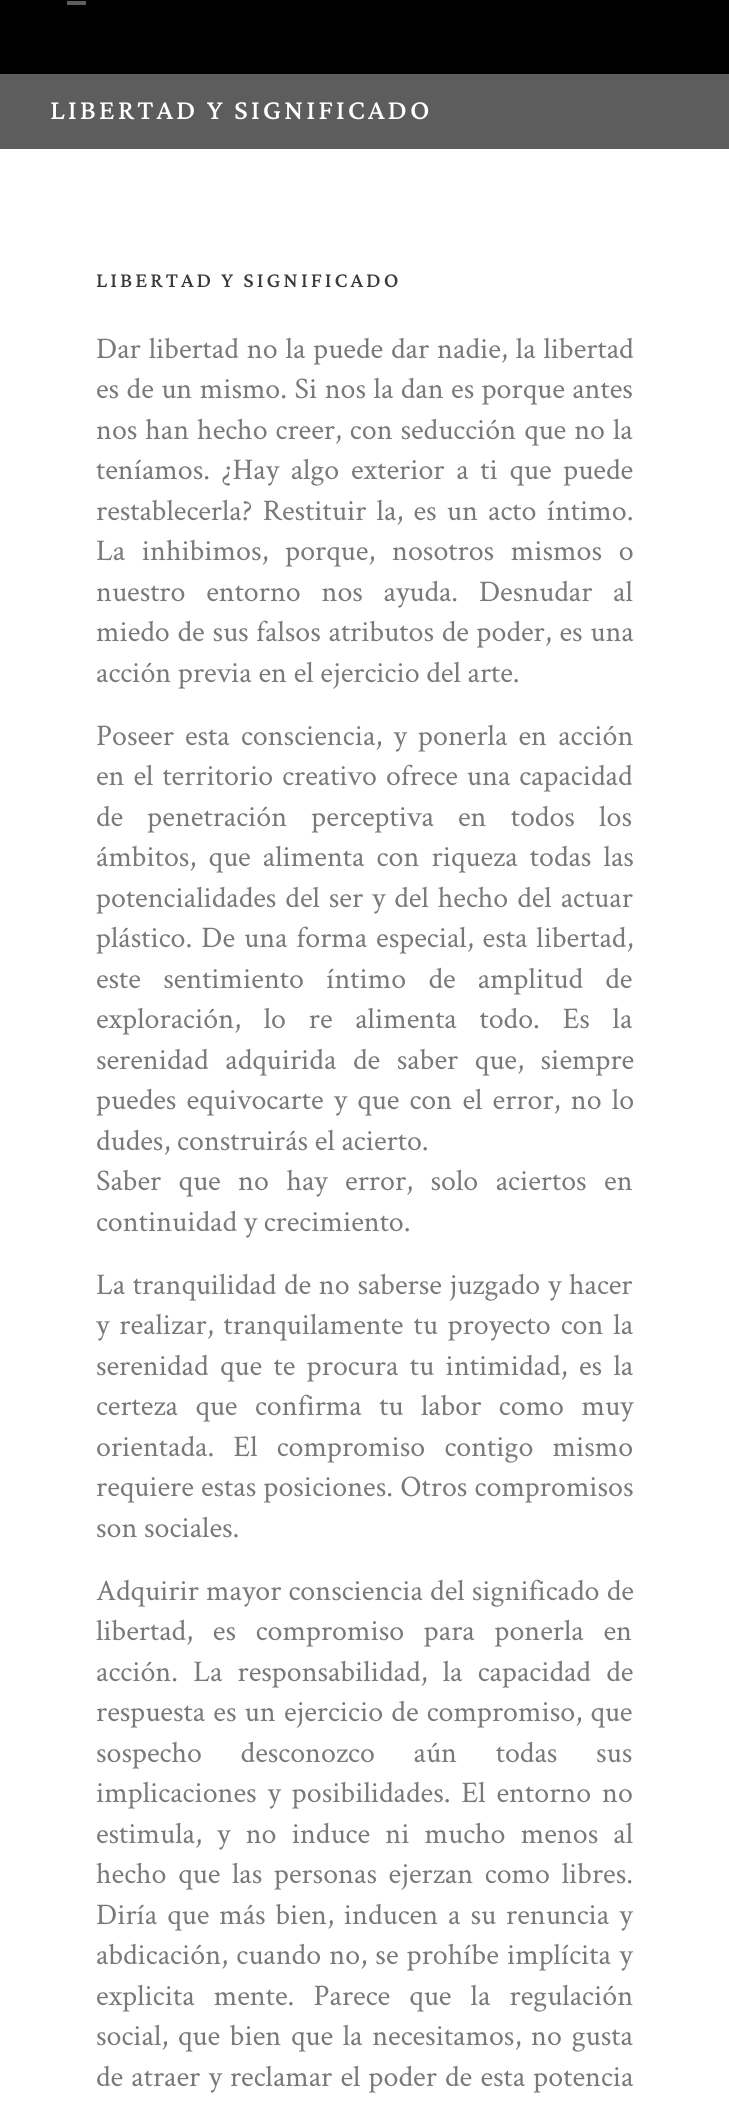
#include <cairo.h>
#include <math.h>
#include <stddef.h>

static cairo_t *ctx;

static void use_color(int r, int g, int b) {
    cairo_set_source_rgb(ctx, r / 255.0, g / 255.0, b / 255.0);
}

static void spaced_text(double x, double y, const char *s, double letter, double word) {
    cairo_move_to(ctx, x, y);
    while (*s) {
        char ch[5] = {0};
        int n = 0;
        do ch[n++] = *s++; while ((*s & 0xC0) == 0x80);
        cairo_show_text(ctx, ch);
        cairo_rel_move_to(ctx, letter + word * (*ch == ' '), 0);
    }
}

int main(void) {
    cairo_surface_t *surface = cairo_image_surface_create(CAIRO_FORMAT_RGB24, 729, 2121);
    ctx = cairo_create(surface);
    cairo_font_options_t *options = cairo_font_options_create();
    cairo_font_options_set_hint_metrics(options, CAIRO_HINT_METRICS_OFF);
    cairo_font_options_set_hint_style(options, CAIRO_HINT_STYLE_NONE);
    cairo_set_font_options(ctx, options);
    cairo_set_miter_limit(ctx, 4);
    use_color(255, 255, 255);
    cairo_paint(ctx);
    use_color(0, 0, 0);
    cairo_rectangle(ctx, 0, 0, 729, 74);
    cairo_fill(ctx);
    use_color(93, 93, 93);
    cairo_rectangle(ctx, 67, 1, 19, 4);
    cairo_fill(ctx);
    cairo_rectangle(ctx, 0, 74, 729, 75);
    cairo_fill(ctx);
    cairo_select_font_face(ctx, "Lateef", CAIRO_FONT_SLANT_NORMAL, CAIRO_FONT_WEIGHT_NORMAL);
    cairo_set_font_size(ctx, 36);
    use_color(255, 255, 255);
    spaced_text(50, 119, "LIBERTAD Y SIGNIFICADO", 3, 0);
    cairo_set_font_size(ctx, 27.25);
    use_color(57, 57, 57);
    spaced_text(96, 287, "LIBERTAD Y SIGNIFICADO", 3, 0);
    cairo_select_font_face(ctx, "Crimson Text", CAIRO_FONT_SLANT_NORMAL, CAIRO_FONT_WEIGHT_NORMAL);
    cairo_set_font_size(ctx, 30);
    use_color(121, 121, 121);
    spaced_text(96, 358, "Dar libertad no la puede dar nadie, la libertad", 0, 1.25);
    spaced_text(96, 398, "es de un mismo. Si nos la dan es porque antes", 0, 0.75);
    spaced_text(96, 439, "nos han hecho creer, con seducción que no la", 0, 1.25);
    spaced_text(96, 479, "teníamos. ¿Hay algo exterior a ti que puede", 0, 5);
    spaced_text(96, 520, "restablecerla? Restituir la, es un acto íntimo.", 0, 3.5);
    spaced_text(96, 560, "La inhibimos, porque, nosotros mismos o", 0, 10);
    spaced_text(96, 601, "nuestro entorno nos ayuda. Desnudar al", 0, 14);
    spaced_text(96, 641, "miedo de sus falsos atributos de poder, es una", 0, 1);
    cairo_move_to(ctx, 96, 682);
    cairo_show_text(ctx, "acción previa en el ejercicio del arte.");
    spaced_text(96, 745, "Poseer esta consciencia, y ponerla en acción", 0, 4.5);
    spaced_text(96, 785, "en el territorio creativo ofrece una capacidad", 0, 2.25);
    spaced_text(96, 826, "de penetración perceptiva en todos los", 0, 17.5);
    spaced_text(96, 866, "ámbitos, que alimenta con riqueza todas las", 0, 5.5);
    spaced_text(96, 907, "potencialidades del ser y del hecho del actuar", 0, 2.25);
    spaced_text(96, 947, "plástico. De una forma especial, esta libertad,", 0, 2.25);
    spaced_text(96, 988, "este sentimiento íntimo de amplitud de", 0, 15.5);
    spaced_text(96, 1028, "exploración, lo re alimenta todo. Es la", 0, 16);
    spaced_text(96, 1069, "serenidad adquirida de saber que, siempre", 0, 10);
    spaced_text(96, 1109, "puedes equivocarte y que con el error, no lo", 0, 3.5);
    cairo_move_to(ctx, 96, 1150);
    cairo_show_text(ctx, "dudes, construirás el acierto.");
    spaced_text(96, 1190, "Saber que no hay error, solo aciertos en", 0, 10.75);
    cairo_move_to(ctx, 96, 1231);
    cairo_show_text(ctx, "continuidad y crecimiento.");
    spaced_text(96, 1294, "La tranquilidad de no saberse juzgado y hacer", 0, 1);
    spaced_text(96, 1334, "y realizar, tranquilamente tu proyecto con la", 0, 3.25);
    spaced_text(96, 1375, "serenidad que te procura tu intimidad, es la", 0, 4.75);
    spaced_text(96, 1415, "certeza que confirma tu labor como muy", 0, 10.75);
    spaced_text(96, 1456, "orientada. El compromiso contigo mismo", 0, 12.5);
    spaced_text(96, 1496, "requiere estas posiciones. Otros compromisos", 0, 0.5);
    cairo_move_to(ctx, 96, 1537);
    cairo_show_text(ctx, "son sociales.");
    spaced_text(96, 1600, "Adquirir mayor consciencia del significado de", 0, 0.5);
    spaced_text(96, 1640, "libertad, es compromiso para ponerla en", 0, 13);
    spaced_text(96, 1681, "acción. La responsabilidad, la capacidad de", 0, 8.5);
    spaced_text(96, 1721, "respuesta es un ejercicio de compromiso, que", 0, 1.5);
    spaced_text(96, 1762, "sospecho desconozco aún todas sus", 0, 32);
    spaced_text(96, 1802, "implicaciones y posibilidades. El entorno no", 0, 4.25);
    spaced_text(96, 1843, "estimula, y no induce ni mucho menos al", 0, 8.5);
    spaced_text(96, 1883, "hecho que las personas ejerzan como libres.", 0, 5);
    spaced_text(96, 1924, "Diría que más bien, inducen a su renuncia y", 0, 3.25);
    spaced_text(96, 1964, "abdicación, cuando no, se prohíbe implícita y", 0, 1.5);
    spaced_text(96, 2005, "explicita mente. Parece que la regulación", 0, 12.5);
    spaced_text(96, 2045, "social, que bien que la necesitamos, no gusta", 0, 3);
    spaced_text(96, 2086, "de atraer y reclamar el poder de esta potencia", 0, 1.5);
    cairo_surface_write_to_png(surface, "result.png");
    cairo_font_options_destroy(options);
    cairo_destroy(ctx);
    cairo_surface_destroy(surface);
    return 0;
}
